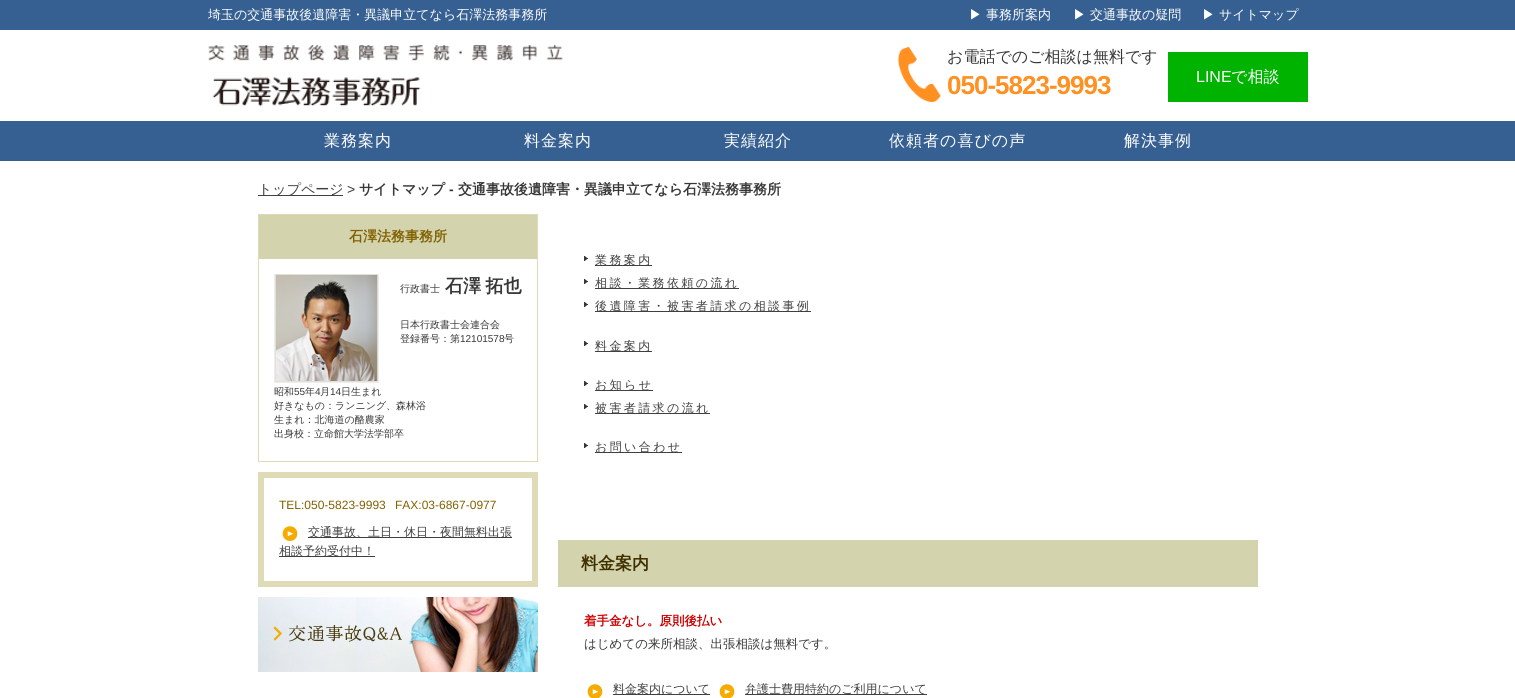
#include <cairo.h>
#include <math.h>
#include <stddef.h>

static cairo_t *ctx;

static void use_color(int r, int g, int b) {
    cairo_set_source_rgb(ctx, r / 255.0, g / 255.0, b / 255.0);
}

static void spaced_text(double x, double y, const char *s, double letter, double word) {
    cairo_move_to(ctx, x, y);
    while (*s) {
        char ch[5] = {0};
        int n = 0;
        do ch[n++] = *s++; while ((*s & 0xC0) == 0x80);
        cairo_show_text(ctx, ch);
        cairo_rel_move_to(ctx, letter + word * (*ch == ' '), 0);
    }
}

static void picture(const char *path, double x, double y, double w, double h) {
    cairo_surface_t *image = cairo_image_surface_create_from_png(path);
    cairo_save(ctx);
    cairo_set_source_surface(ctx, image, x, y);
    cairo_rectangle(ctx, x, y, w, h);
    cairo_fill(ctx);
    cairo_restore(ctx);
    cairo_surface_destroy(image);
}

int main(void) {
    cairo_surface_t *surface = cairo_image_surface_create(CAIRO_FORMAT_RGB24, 1515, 698);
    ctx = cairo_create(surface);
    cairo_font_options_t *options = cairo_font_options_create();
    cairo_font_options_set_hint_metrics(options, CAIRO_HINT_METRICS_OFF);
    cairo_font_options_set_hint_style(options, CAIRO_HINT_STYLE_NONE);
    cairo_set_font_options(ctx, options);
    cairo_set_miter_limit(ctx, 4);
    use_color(255, 255, 255);
    cairo_paint(ctx);
    use_color(54, 96, 146);
    cairo_rectangle(ctx, 0, 0, 1515, 30);
    cairo_fill(ctx);
    cairo_select_font_face(ctx, "WenQuanYi Zen Hei Medium", CAIRO_FONT_SLANT_NORMAL, CAIRO_FONT_WEIGHT_NORMAL);
    cairo_set_font_size(ctx, 13);
    use_color(255, 255, 255);
    cairo_move_to(ctx, 208, 19);
    cairo_show_text(ctx, "埼玉の交通事故後遺障害・異議申立てなら石澤法務事務所");
    cairo_move_to(ctx, 969, 19);
    cairo_show_text(ctx, "▶ 事務所案内");
    cairo_move_to(ctx, 1073, 19);
    cairo_show_text(ctx, "▶ 交通事故の疑問");
    cairo_move_to(ctx, 1202, 19);
    cairo_show_text(ctx, "▶ サイトマップ");
    picture("img1.png", 208, 45, 355, 62);
    picture("img2.png", 898, 47, 43, 55);
    cairo_set_font_size(ctx, 16);
    use_color(55, 55, 55);
    cairo_move_to(ctx, 947, 62);
    cairo_show_text(ctx, "お電話でのご相談は無料です");
    cairo_select_font_face(ctx, "Liberation Sans", CAIRO_FONT_SLANT_NORMAL, CAIRO_FONT_WEIGHT_BOLD);
    cairo_set_font_size(ctx, 26);
    use_color(255, 144, 33);
    spaced_text(947, 94, "050-5823-9993", -1, 0);
    use_color(0, 179, 0);
    cairo_rectangle(ctx, 1168, 52, 140, 50);
    cairo_fill(ctx);
    cairo_select_font_face(ctx, "Liberation Sans", CAIRO_FONT_SLANT_NORMAL, CAIRO_FONT_WEIGHT_NORMAL);
    cairo_set_font_size(ctx, 16);
    use_color(255, 255, 255);
    cairo_move_to(ctx, 1196, 82);
    cairo_show_text(ctx, "LINE");
    cairo_select_font_face(ctx, "WenQuanYi Zen Hei Medium", CAIRO_FONT_SLANT_NORMAL, CAIRO_FONT_WEIGHT_NORMAL);
    cairo_move_to(ctx, 1231, 82);
    cairo_show_text(ctx, "で相談");
    use_color(54, 96, 146);
    cairo_rectangle(ctx, 0, 121, 1515, 40);
    cairo_fill(ctx);
    use_color(255, 255, 255);
    spaced_text(324, 146, "業務案内", 1, 0);
    spaced_text(524, 146, "料金案内", 1, 0);
    spaced_text(724, 146, "実績紹介", 1, 0);
    spaced_text(889, 146, "依頼者の喜びの声", 1, 0);
    spaced_text(1124, 146, "解決事例", 1, 0);
    use_color(64, 64, 64);
    cairo_rectangle(ctx, 258, 195, 85, 1);
    cairo_fill(ctx);
    cairo_set_font_size(ctx, 14);
    cairo_move_to(ctx, 258, 194);
    cairo_show_text(ctx, "トップページ");
    cairo_select_font_face(ctx, "Liberation Sans", CAIRO_FONT_SLANT_NORMAL, CAIRO_FONT_WEIGHT_NORMAL);
    use_color(55, 55, 55);
    cairo_move_to(ctx, 347, 194);
    cairo_show_text(ctx, ">");
    cairo_select_font_face(ctx, "WenQuanYi Zen Hei", CAIRO_FONT_SLANT_NORMAL, CAIRO_FONT_WEIGHT_BOLD);
    cairo_move_to(ctx, 359, 194);
    cairo_show_text(ctx, "サイトマップ");
    cairo_select_font_face(ctx, "Liberation Sans", CAIRO_FONT_SLANT_NORMAL, CAIRO_FONT_WEIGHT_BOLD);
    cairo_move_to(ctx, 449, 194);
    cairo_show_text(ctx, "-");
    cairo_select_font_face(ctx, "WenQuanYi Zen Hei", CAIRO_FONT_SLANT_NORMAL, CAIRO_FONT_WEIGHT_BOLD);
    cairo_move_to(ctx, 458, 194);
    cairo_show_text(ctx, "交通事故後遺障害・異議申立てなら石澤法務事務所");
    cairo_rectangle(ctx, 258.5, 214.5, 279, 247);
    use_color(224, 219, 183);
    cairo_set_line_width(ctx, 1);
    cairo_stroke(ctx);
    use_color(211, 211, 174);
    cairo_rectangle(ctx, 259, 215, 278, 44);
    cairo_fill(ctx);
    use_color(129, 97, 0);
    cairo_move_to(ctx, 349, 241);
    cairo_show_text(ctx, "石澤法務事務所");
    picture("img3.png", 274, 274, 105, 109);
    cairo_select_font_face(ctx, "WenQuanYi Zen Hei Medium", CAIRO_FONT_SLANT_NORMAL, CAIRO_FONT_WEIGHT_NORMAL);
    cairo_set_font_size(ctx, 10);
    use_color(55, 55, 55);
    cairo_move_to(ctx, 400, 292);
    cairo_show_text(ctx, "行政書士");
    cairo_select_font_face(ctx, "WenQuanYi Zen Hei", CAIRO_FONT_SLANT_NORMAL, CAIRO_FONT_WEIGHT_BOLD);
    cairo_set_font_size(ctx, 18);
    spaced_text(445, 292, "石澤 拓也", 0, -1);
    cairo_select_font_face(ctx, "WenQuanYi Zen Hei Medium", CAIRO_FONT_SLANT_NORMAL, CAIRO_FONT_WEIGHT_NORMAL);
    cairo_set_font_size(ctx, 10);
    cairo_move_to(ctx, 400, 328);
    cairo_show_text(ctx, "日本行政書士会連合会");
    cairo_move_to(ctx, 400, 342);
    cairo_show_text(ctx, "登録番号：第");
    cairo_select_font_face(ctx, "Liberation Sans", CAIRO_FONT_SLANT_NORMAL, CAIRO_FONT_WEIGHT_NORMAL);
    cairo_move_to(ctx, 460, 342);
    cairo_show_text(ctx, "12101578");
    cairo_select_font_face(ctx, "WenQuanYi Zen Hei Medium", CAIRO_FONT_SLANT_NORMAL, CAIRO_FONT_WEIGHT_NORMAL);
    cairo_move_to(ctx, 504, 342);
    cairo_show_text(ctx, "号");
    cairo_move_to(ctx, 274, 395);
    cairo_show_text(ctx, "昭和");
    cairo_select_font_face(ctx, "Liberation Sans", CAIRO_FONT_SLANT_NORMAL, CAIRO_FONT_WEIGHT_NORMAL);
    cairo_move_to(ctx, 294, 395);
    cairo_show_text(ctx, "55");
    cairo_select_font_face(ctx, "WenQuanYi Zen Hei Medium", CAIRO_FONT_SLANT_NORMAL, CAIRO_FONT_WEIGHT_NORMAL);
    cairo_move_to(ctx, 305, 395);
    cairo_show_text(ctx, "年");
    cairo_select_font_face(ctx, "Liberation Sans", CAIRO_FONT_SLANT_NORMAL, CAIRO_FONT_WEIGHT_NORMAL);
    cairo_move_to(ctx, 315, 395);
    cairo_show_text(ctx, "4");
    cairo_select_font_face(ctx, "WenQuanYi Zen Hei Medium", CAIRO_FONT_SLANT_NORMAL, CAIRO_FONT_WEIGHT_NORMAL);
    cairo_move_to(ctx, 320, 395);
    cairo_show_text(ctx, "月");
    cairo_select_font_face(ctx, "Liberation Sans", CAIRO_FONT_SLANT_NORMAL, CAIRO_FONT_WEIGHT_NORMAL);
    cairo_move_to(ctx, 330, 395);
    cairo_show_text(ctx, "14");
    cairo_select_font_face(ctx, "WenQuanYi Zen Hei Medium", CAIRO_FONT_SLANT_NORMAL, CAIRO_FONT_WEIGHT_NORMAL);
    cairo_move_to(ctx, 341, 395);
    cairo_show_text(ctx, "日生まれ");
    cairo_move_to(ctx, 274, 409);
    cairo_show_text(ctx, "好きなもの：ランニング、森林浴");
    cairo_move_to(ctx, 274, 423);
    cairo_show_text(ctx, "生まれ：北海道の酪農家");
    cairo_move_to(ctx, 274, 437);
    cairo_show_text(ctx, "出身校：立命館大学法学部卒");
    cairo_rectangle(ctx, 261, 475, 274, 109);
    use_color(224, 219, 183);
    cairo_set_line_width(ctx, 6);
    cairo_stroke(ctx);
    cairo_select_font_face(ctx, "Liberation Sans", CAIRO_FONT_SLANT_NORMAL, CAIRO_FONT_WEIGHT_NORMAL);
    cairo_set_font_size(ctx, 12);
    use_color(129, 97, 0);
    cairo_move_to(ctx, 279, 509);
    cairo_show_text(ctx, "TEL:050-5823-9993");
    cairo_move_to(ctx, 395, 509);
    cairo_show_text(ctx, "FAX:03-6867-0977");
    picture("img4.png", 282, 526, 16, 15);
    use_color(64, 64, 64);
    cairo_rectangle(ctx, 308, 537, 204, 1);
    cairo_fill(ctx);
    cairo_select_font_face(ctx, "WenQuanYi Zen Hei Medium", CAIRO_FONT_SLANT_NORMAL, CAIRO_FONT_WEIGHT_NORMAL);
    cairo_move_to(ctx, 308, 536);
    cairo_show_text(ctx, "交通事故、土日・休日・夜間無料出張");
    cairo_rectangle(ctx, 279, 556, 96, 1);
    cairo_fill(ctx);
    cairo_move_to(ctx, 279, 555);
    cairo_show_text(ctx, "相談予約受付中！");
    picture("img5.png", 258, 597, 280, 75);
    picture("img6.png", 584, 256, 4, 5);
    cairo_rectangle(ctx, 595, 265, 57, 1);
    cairo_fill(ctx);
    spaced_text(595, 264, "業務案内", 2.4, 0);
    picture("img6.png", 584, 279, 4, 5);
    cairo_rectangle(ctx, 595, 288, 144, 1);
    cairo_fill(ctx);
    spaced_text(595, 287, "相談・業務依頼の流れ", 2.4, 0);
    picture("img6.png", 584, 302, 4, 5);
    cairo_rectangle(ctx, 595, 311, 216, 1);
    cairo_fill(ctx);
    spaced_text(595, 310, "後遺障害・被害者請求の相談事例", 2.4, 0);
    picture("img6.png", 584, 341, 4, 5);
    cairo_rectangle(ctx, 595, 351, 57, 1);
    cairo_fill(ctx);
    spaced_text(595, 350, "料金案内", 2.4, 0);
    picture("img6.png", 584, 381, 4, 5);
    cairo_rectangle(ctx, 595, 390, 58, 1);
    cairo_fill(ctx);
    spaced_text(595, 389, "お知らせ", 2.4, 0);
    picture("img6.png", 584, 404, 4, 5);
    cairo_rectangle(ctx, 595, 413, 115, 1);
    cairo_fill(ctx);
    spaced_text(595, 412, "被害者請求の流れ", 2.4, 0);
    picture("img6.png", 584, 443, 4, 5);
    cairo_rectangle(ctx, 595, 452, 87, 1);
    cairo_fill(ctx);
    spaced_text(595, 451, "お問い合わせ", 2.4, 0);
    use_color(211, 211, 174);
    cairo_rectangle(ctx, 558, 540, 700, 47);
    cairo_fill(ctx);
    cairo_select_font_face(ctx, "WenQuanYi Zen Hei", CAIRO_FONT_SLANT_NORMAL, CAIRO_FONT_WEIGHT_BOLD);
    cairo_set_font_size(ctx, 17);
    use_color(64, 48, 0);
    cairo_move_to(ctx, 581, 569);
    cairo_show_text(ctx, "料金案内");
    cairo_set_font_size(ctx, 12.5);
    use_color(204, 0, 0);
    cairo_move_to(ctx, 584, 625);
    cairo_show_text(ctx, "着手金なし。原則後払い");
    cairo_select_font_face(ctx, "WenQuanYi Zen Hei Medium", CAIRO_FONT_SLANT_NORMAL, CAIRO_FONT_WEIGHT_NORMAL);
    use_color(55, 55, 55);
    cairo_move_to(ctx, 584, 648);
    cairo_show_text(ctx, "はじめての来所相談、出張相談は無料です。");
    picture("img7.png", 587, 684, 16, 14);
    use_color(64, 64, 64);
    cairo_rectangle(ctx, 613, 694, 97, 1);
    cairo_fill(ctx);
    cairo_set_font_size(ctx, 12);
    cairo_move_to(ctx, 613, 693);
    cairo_show_text(ctx, "料金案内について");
    picture("img7.png", 719, 684, 16, 14);
    cairo_rectangle(ctx, 745, 694, 182, 1);
    cairo_fill(ctx);
    cairo_move_to(ctx, 745, 693);
    cairo_show_text(ctx, "弁護士費用特約のご利用について");
    cairo_surface_write_to_png(surface, "result.png");
    cairo_font_options_destroy(options);
    cairo_destroy(ctx);
    cairo_surface_destroy(surface);
    return 0;
}
